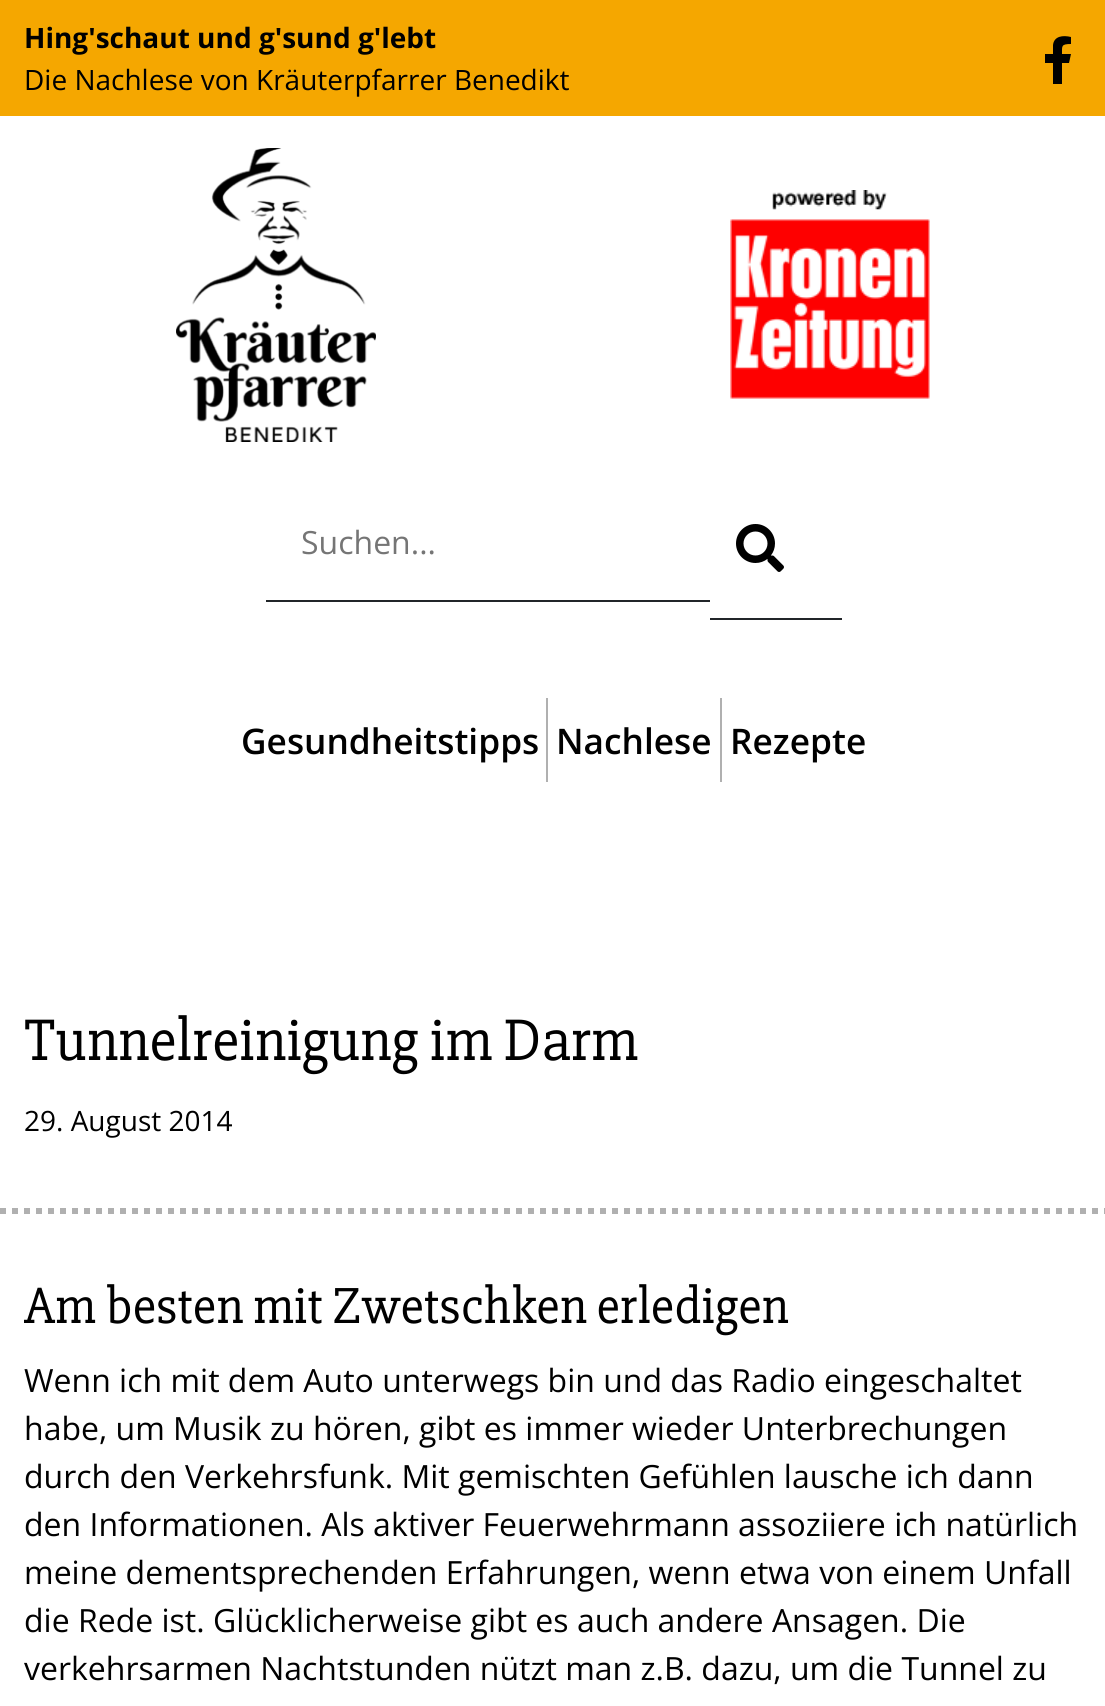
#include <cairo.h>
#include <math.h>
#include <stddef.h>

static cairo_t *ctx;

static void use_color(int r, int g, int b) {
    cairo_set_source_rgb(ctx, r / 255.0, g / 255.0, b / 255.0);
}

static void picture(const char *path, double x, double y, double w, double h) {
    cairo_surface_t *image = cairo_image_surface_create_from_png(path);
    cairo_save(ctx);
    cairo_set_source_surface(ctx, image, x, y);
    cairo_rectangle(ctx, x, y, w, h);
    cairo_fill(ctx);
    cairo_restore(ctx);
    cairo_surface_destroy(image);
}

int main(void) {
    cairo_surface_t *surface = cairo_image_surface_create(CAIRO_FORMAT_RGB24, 1105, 1706);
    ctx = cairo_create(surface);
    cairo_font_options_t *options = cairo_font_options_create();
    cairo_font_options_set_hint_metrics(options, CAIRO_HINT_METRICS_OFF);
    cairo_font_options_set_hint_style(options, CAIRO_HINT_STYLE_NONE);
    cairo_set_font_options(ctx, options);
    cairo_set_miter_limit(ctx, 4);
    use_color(255, 255, 255);
    cairo_paint(ctx);
    use_color(245, 167, 0);
    cairo_rectangle(ctx, 0, 0, 1105, 116);
    cairo_fill(ctx);
    cairo_select_font_face(ctx, "Open Sans", CAIRO_FONT_SLANT_NORMAL, CAIRO_FONT_WEIGHT_BOLD);
    cairo_set_font_size(ctx, 28);
    use_color(0, 0, 0);
    cairo_move_to(ctx, 24, 48);
    cairo_show_text(ctx, "Hing'schaut und g'sund g'lebt");
    cairo_select_font_face(ctx, "Open Sans", CAIRO_FONT_SLANT_NORMAL, CAIRO_FONT_WEIGHT_NORMAL);
    cairo_move_to(ctx, 24, 90);
    cairo_show_text(ctx, "Die Nachlese von Kräuterpfarrer Benedikt");
    cairo_new_path(ctx);
    cairo_move_to(ctx, 1069, 63);
    cairo_line_to(ctx, 1071, 54);
    cairo_line_to(ctx, 1062, 54);
    cairo_curve_to(ctx, 1062, 46, 1061, 44, 1071, 44);
    cairo_line_to(ctx, 1071, 37);
    cairo_curve_to(ctx, 1063, 35, 1054, 36, 1053, 45);
    cairo_line_to(ctx, 1053, 54);
    cairo_line_to(ctx, 1045, 54);
    cairo_line_to(ctx, 1045, 63);
    cairo_line_to(ctx, 1053, 63);
    cairo_line_to(ctx, 1053, 84);
    cairo_line_to(ctx, 1062, 84);
    cairo_line_to(ctx, 1062, 63);
    cairo_close_path(ctx);
    cairo_fill(ctx);
    picture("img1.png", 176, 148, 200, 294);
    picture("img2.png", 730, 190, 200, 209);
    use_color(33, 37, 41);
    cairo_rectangle(ctx, 266, 600, 444, 2);
    cairo_fill(ctx);
    cairo_rectangle(ctx, 710, 618, 132, 2);
    cairo_fill(ctx);
    cairo_set_font_size(ctx, 32);
    use_color(117, 117, 117);
    cairo_move_to(ctx, 301, 554);
    cairo_show_text(ctx, "Suchen...");
    picture("img3.png", 736, 524, 48, 48);
    cairo_select_font_face(ctx, "Open Sans SemiBold", CAIRO_FONT_SLANT_NORMAL, CAIRO_FONT_WEIGHT_NORMAL);
    cairo_set_font_size(ctx, 35.25);
    use_color(0, 0, 0);
    cairo_move_to(ctx, 241, 754);
    cairo_show_text(ctx, "Gesundheitstipps");
    use_color(176, 176, 176);
    cairo_rectangle(ctx, 546, 698, 2, 84);
    cairo_fill(ctx);
    use_color(0, 0, 0);
    cairo_move_to(ctx, 556, 754);
    cairo_show_text(ctx, "Nachlese");
    use_color(176, 176, 176);
    cairo_rectangle(ctx, 720, 698, 2, 84);
    cairo_fill(ctx);
    use_color(0, 0, 0);
    cairo_move_to(ctx, 730, 754);
    cairo_show_text(ctx, "Rezepte");
    cairo_new_path(ctx);
    cairo_move_to(ctx, 0, 1211);
    cairo_line_to(ctx, 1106, 1211);
    use_color(176, 176, 176);
    cairo_set_line_width(ctx, 6);
    cairo_set_dash(ctx, (double[]){6, 6}, 2, 0);
    cairo_stroke(ctx);
    cairo_select_font_face(ctx, "Slabo 27px", CAIRO_FONT_SLANT_NORMAL, CAIRO_FONT_WEIGHT_NORMAL);
    cairo_set_font_size(ctx, 60.5);
    use_color(0, 0, 0);
    cairo_move_to(ctx, 24, 1060);
    cairo_show_text(ctx, "Tunnelreinigung im Darm");
    cairo_select_font_face(ctx, "Open Sans", CAIRO_FONT_SLANT_NORMAL, CAIRO_FONT_WEIGHT_NORMAL);
    cairo_set_font_size(ctx, 28);
    cairo_move_to(ctx, 24, 1131);
    cairo_show_text(ctx, "29. August 2014");
    cairo_select_font_face(ctx, "Slabo 27px", CAIRO_FONT_SLANT_NORMAL, CAIRO_FONT_WEIGHT_NORMAL);
    cairo_set_font_size(ctx, 52.4);
    cairo_move_to(ctx, 24, 1323);
    cairo_show_text(ctx, "Am besten mit Zwetschken erledigen");
    cairo_select_font_face(ctx, "Open Sans", CAIRO_FONT_SLANT_NORMAL, CAIRO_FONT_WEIGHT_NORMAL);
    cairo_set_font_size(ctx, 32);
    cairo_move_to(ctx, 24, 1392);
    cairo_show_text(ctx, "Wenn ich mit dem Auto unterwegs bin und das Radio eingeschaltet");
    cairo_move_to(ctx, 24, 1440);
    cairo_show_text(ctx, "habe, um Musik zu hören, gibt es immer wieder Unterbrechungen");
    cairo_move_to(ctx, 24, 1488);
    cairo_show_text(ctx, "durch den Verkehrsfunk. Mit gemischten Gefühlen lausche ich dann");
    cairo_move_to(ctx, 24, 1536);
    cairo_show_text(ctx, "den Informationen. Als aktiver Feuerwehrmann assoziiere ich natürlich");
    cairo_move_to(ctx, 24, 1584);
    cairo_show_text(ctx, "meine dementsprechenden Erfahrungen, wenn etwa von einem Unfall");
    cairo_move_to(ctx, 24, 1632);
    cairo_show_text(ctx, "die Rede ist. Glücklicherweise gibt es auch andere Ansagen. Die");
    cairo_move_to(ctx, 24, 1680);
    cairo_show_text(ctx, "verkehrsarmen Nachtstunden nützt man z.B. dazu, um die Tunnel zu");
    cairo_surface_write_to_png(surface, "result.png");
    cairo_font_options_destroy(options);
    cairo_destroy(ctx);
    cairo_surface_destroy(surface);
    return 0;
}
